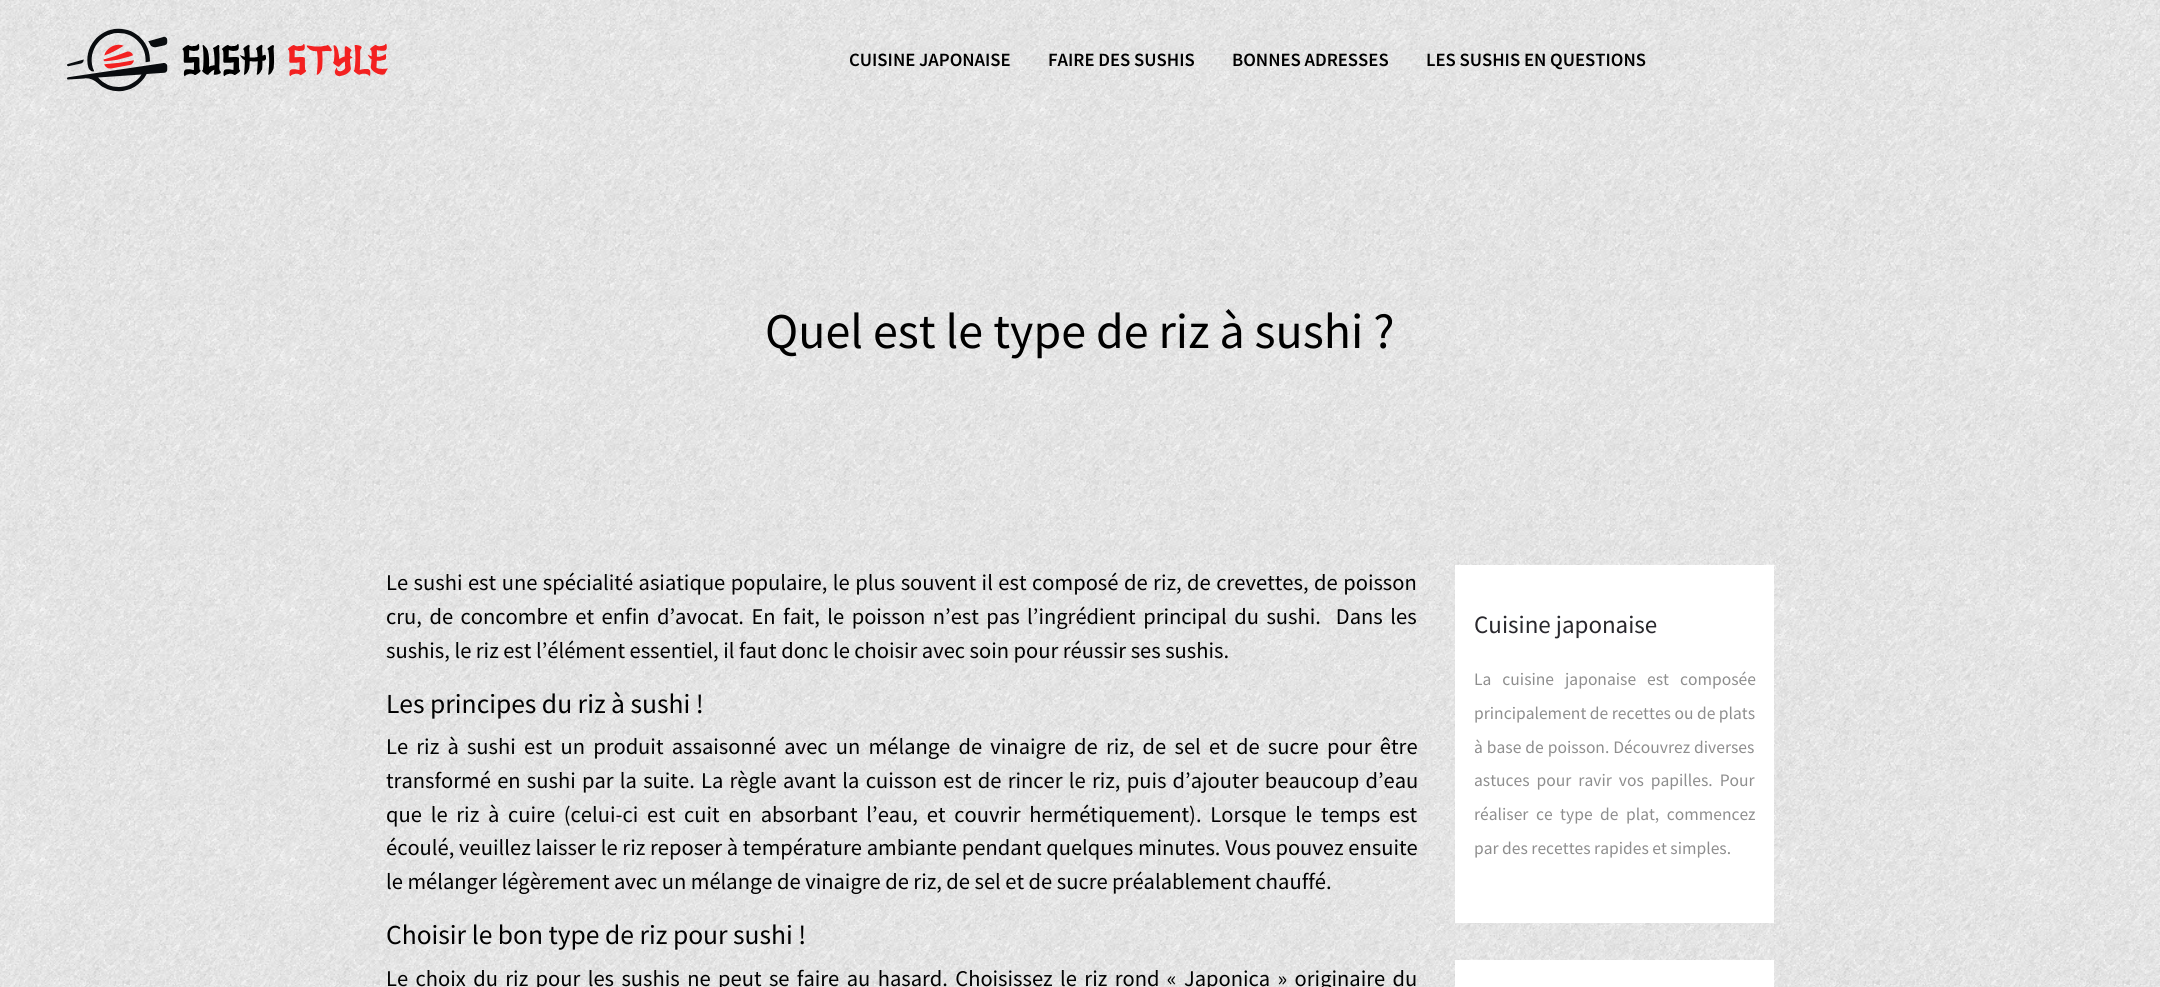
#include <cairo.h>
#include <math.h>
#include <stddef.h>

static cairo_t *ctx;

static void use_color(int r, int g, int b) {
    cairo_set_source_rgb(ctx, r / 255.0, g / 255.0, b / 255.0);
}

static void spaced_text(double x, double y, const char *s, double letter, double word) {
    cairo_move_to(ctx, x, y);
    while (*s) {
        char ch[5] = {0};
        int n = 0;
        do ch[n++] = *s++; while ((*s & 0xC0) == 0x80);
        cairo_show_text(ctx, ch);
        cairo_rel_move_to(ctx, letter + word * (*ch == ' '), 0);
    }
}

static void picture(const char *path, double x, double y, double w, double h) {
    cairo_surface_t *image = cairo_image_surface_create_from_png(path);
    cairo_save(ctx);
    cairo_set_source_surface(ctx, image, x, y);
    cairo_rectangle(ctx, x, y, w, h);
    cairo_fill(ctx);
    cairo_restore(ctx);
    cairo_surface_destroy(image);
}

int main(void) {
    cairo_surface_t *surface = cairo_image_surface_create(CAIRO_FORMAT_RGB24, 2160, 987);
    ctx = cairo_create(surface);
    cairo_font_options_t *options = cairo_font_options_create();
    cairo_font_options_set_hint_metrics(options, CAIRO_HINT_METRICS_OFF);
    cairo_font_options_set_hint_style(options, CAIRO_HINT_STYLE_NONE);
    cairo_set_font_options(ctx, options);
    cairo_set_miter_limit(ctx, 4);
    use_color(255, 255, 255);
    cairo_paint(ctx);
    picture("img1.png", 0, 0, 2160, 987);
    picture("img2.png", 67, 28, 321, 64);
    cairo_select_font_face(ctx, "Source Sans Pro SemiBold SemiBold", CAIRO_FONT_SLANT_NORMAL, CAIRO_FONT_WEIGHT_NORMAL);
    cairo_set_font_size(ctx, 18.75);
    use_color(0, 0, 0);
    cairo_move_to(ctx, 849, 66);
    cairo_show_text(ctx, "CUISINE JAPONAISE");
    cairo_move_to(ctx, 1048, 66);
    cairo_show_text(ctx, "FAIRE DES SUSHIS");
    cairo_move_to(ctx, 1232, 66);
    cairo_show_text(ctx, "BONNES ADRESSES");
    cairo_move_to(ctx, 1426, 66);
    cairo_show_text(ctx, "LES SUSHIS EN QUESTIONS");
    cairo_select_font_face(ctx, "Source Sans Pro", CAIRO_FONT_SLANT_NORMAL, CAIRO_FONT_WEIGHT_NORMAL);
    cairo_set_font_size(ctx, 50);
    cairo_move_to(ctx, 765, 348);
    cairo_show_text(ctx, "Quel est le type de riz à sushi ?");
    cairo_set_font_size(ctx, 22.5);
    spaced_text(386, 590, "Le sushi est une spécialité asiatique populaire, le plus souvent il est composé de riz, de crevettes, de poisson", 0, 1);
    spaced_text(386, 624, "cru, de concombre et enfin d’avocat. En fait, le poisson n’est pas l’ingrédient principal du sushi.  Dans les", 0, 3);
    cairo_move_to(ctx, 386, 658);
    cairo_show_text(ctx, "sushis, le riz est l’élément essentiel, il faut donc le choisir avec soin pour réussir ses sushis.");
    cairo_set_font_size(ctx, 27.5);
    cairo_move_to(ctx, 386, 713);
    cairo_show_text(ctx, "Les principes du riz à sushi !");
    cairo_set_font_size(ctx, 22.5);
    spaced_text(386, 754, "Le riz à sushi est un produit assaisonné avec un mélange de vinaigre de riz, de sel et de sucre pour être", 0, 3.7);
    spaced_text(386, 788, "transformé en sushi par la suite. La règle avant la cuisson est de rincer le riz, puis d’ajouter beaucoup d’eau", 0, 1.75);
    spaced_text(386, 822, "que le riz à cuire (celui-ci est cuit en absorbant l’eau, et couvrir hermétiquement). Lorsque le temps est", 0, 4.25);
    spaced_text(386, 855, "écoulé, veuillez laisser le riz reposer à température ambiante pendant quelques minutes. Vous pouvez ensuite", 0, 0.25);
    cairo_move_to(ctx, 386, 889);
    cairo_show_text(ctx, "le mélanger légèrement avec un mélange de vinaigre de riz, de sel et de sucre préalablement chauffé.");
    cairo_set_font_size(ctx, 27.5);
    cairo_move_to(ctx, 386, 944);
    cairo_show_text(ctx, "Choisir le bon type de riz pour sushi !");
    cairo_set_font_size(ctx, 22.5);
    spaced_text(386, 986, "Le choix du riz pour les sushis ne peut se faire au hasard. Choisissez le riz rond « Japonica » originaire du", 0, 2.9);
    use_color(255, 255, 255);
    cairo_rectangle(ctx, 1455, 565, 319, 358);
    cairo_fill(ctx);
    cairo_set_font_size(ctx, 25);
    use_color(41, 40, 45);
    cairo_move_to(ctx, 1474, 633);
    cairo_show_text(ctx, "Cuisine japonaise");
    cairo_set_font_size(ctx, 17.5);
    use_color(142, 142, 142);
    spaced_text(1474, 685, "La cuisine japonaise est composée", 0, 7.5);
    cairo_move_to(ctx, 1474, 719);
    cairo_show_text(ctx, "principalement de recettes ou de plats");
    spaced_text(1474, 753, "à base de poisson. Découvrez diverses", 0, 0.5);
    spaced_text(1474, 786, "astuces pour ravir vos papilles. Pour", 0, 3.5);
    spaced_text(1474, 820, "réaliser ce type de plat, commencez", 0, 4);
    cairo_move_to(ctx, 1474, 854);
    cairo_show_text(ctx, "par des recettes rapides et simples.");
    use_color(255, 255, 255);
    cairo_rectangle(ctx, 1455, 960, 319, 27);
    cairo_fill(ctx);
    cairo_surface_write_to_png(surface, "result.png");
    cairo_font_options_destroy(options);
    cairo_destroy(ctx);
    cairo_surface_destroy(surface);
    return 0;
}
